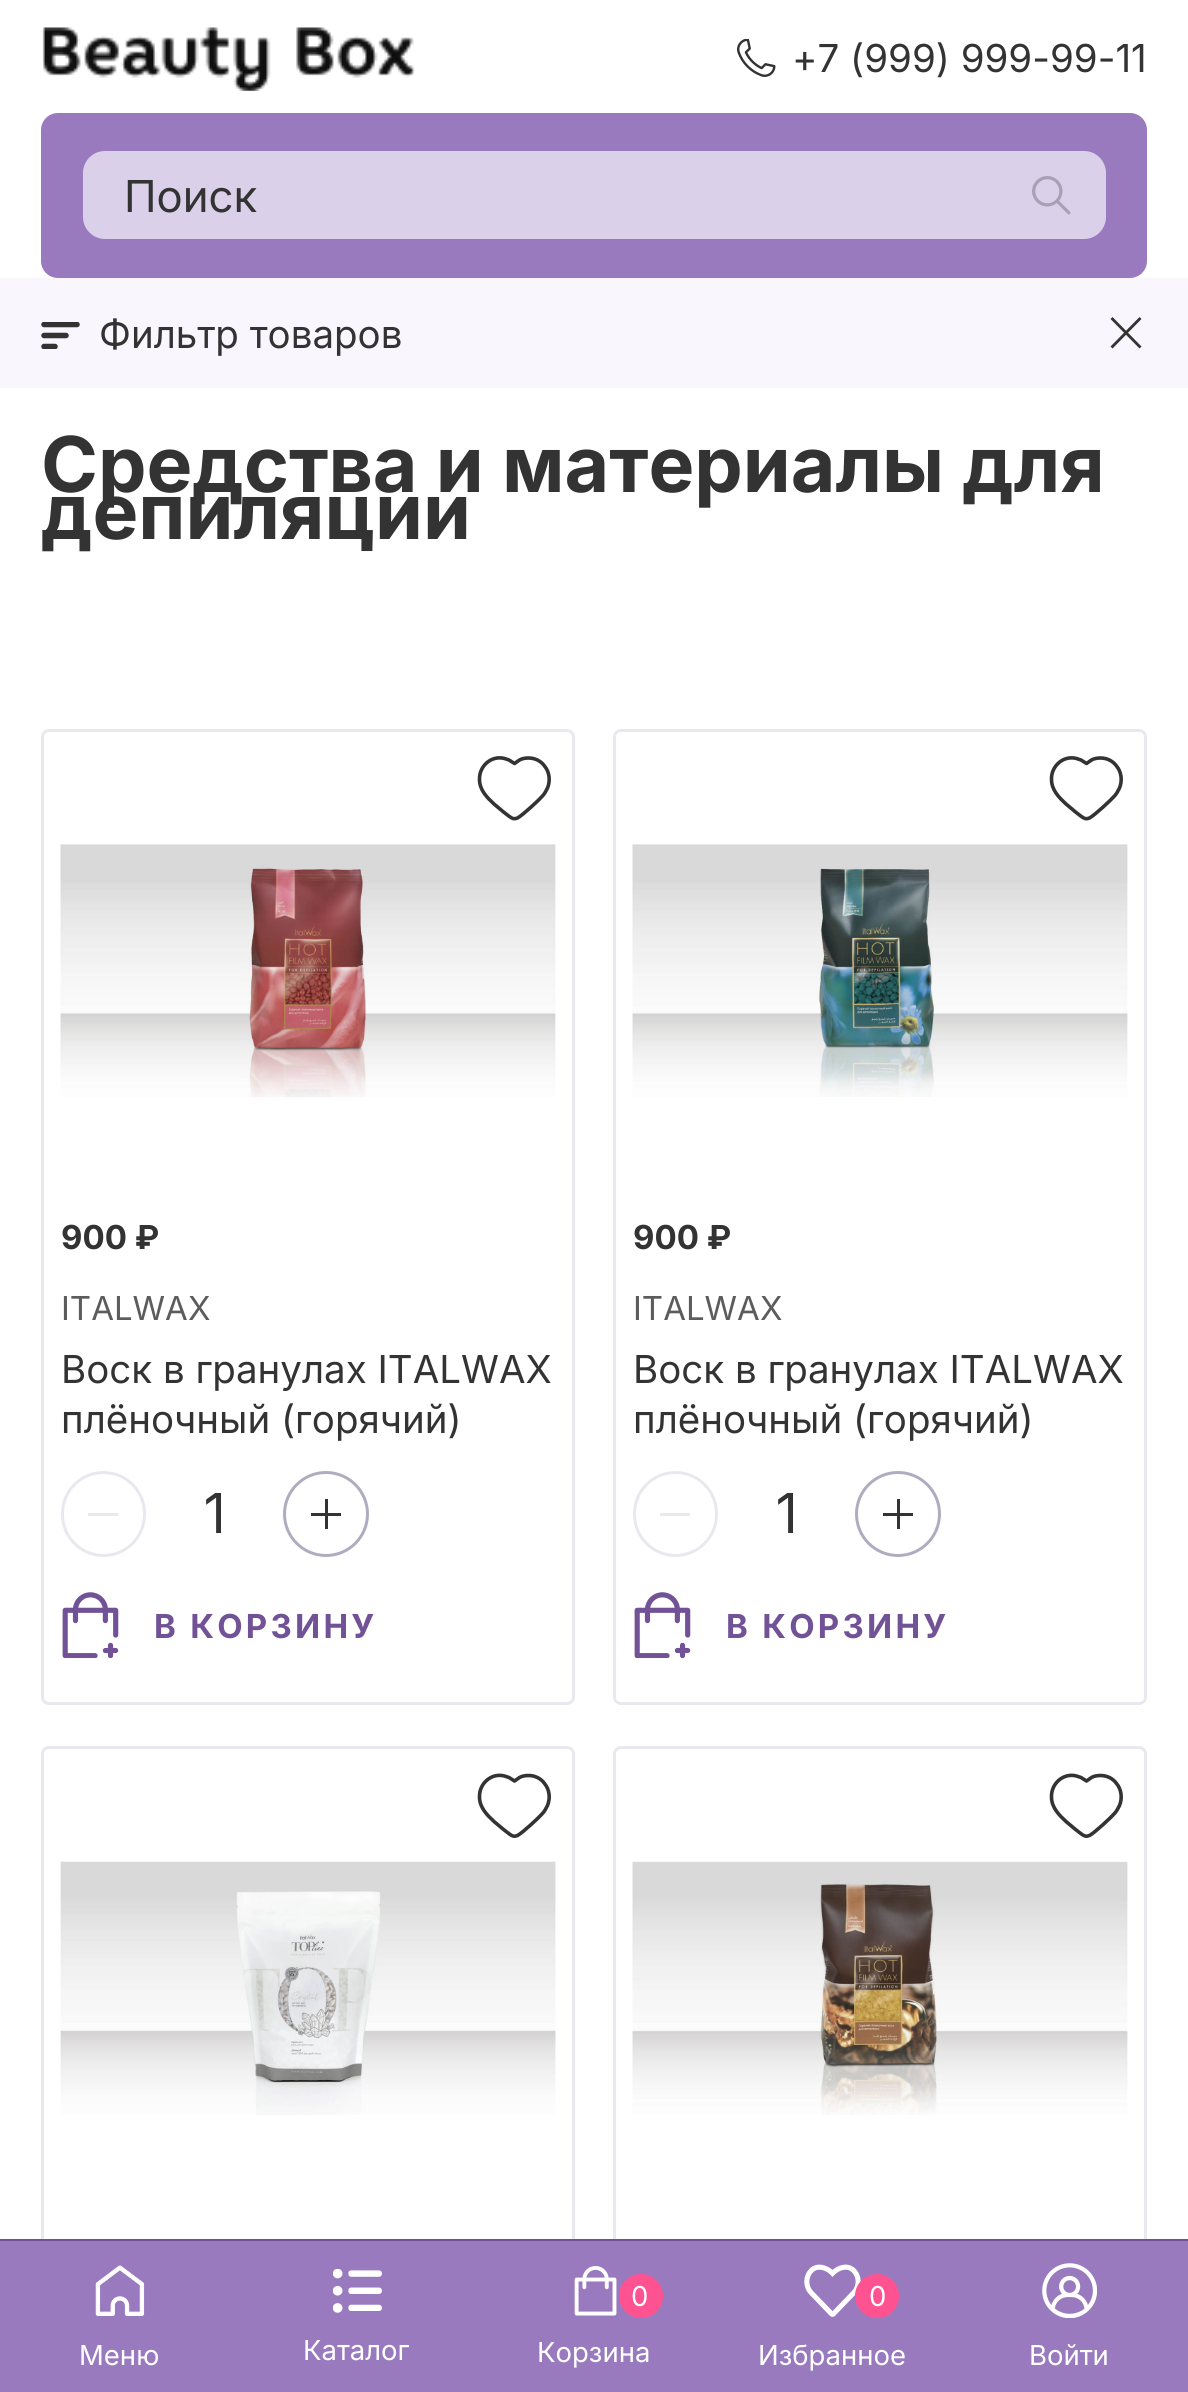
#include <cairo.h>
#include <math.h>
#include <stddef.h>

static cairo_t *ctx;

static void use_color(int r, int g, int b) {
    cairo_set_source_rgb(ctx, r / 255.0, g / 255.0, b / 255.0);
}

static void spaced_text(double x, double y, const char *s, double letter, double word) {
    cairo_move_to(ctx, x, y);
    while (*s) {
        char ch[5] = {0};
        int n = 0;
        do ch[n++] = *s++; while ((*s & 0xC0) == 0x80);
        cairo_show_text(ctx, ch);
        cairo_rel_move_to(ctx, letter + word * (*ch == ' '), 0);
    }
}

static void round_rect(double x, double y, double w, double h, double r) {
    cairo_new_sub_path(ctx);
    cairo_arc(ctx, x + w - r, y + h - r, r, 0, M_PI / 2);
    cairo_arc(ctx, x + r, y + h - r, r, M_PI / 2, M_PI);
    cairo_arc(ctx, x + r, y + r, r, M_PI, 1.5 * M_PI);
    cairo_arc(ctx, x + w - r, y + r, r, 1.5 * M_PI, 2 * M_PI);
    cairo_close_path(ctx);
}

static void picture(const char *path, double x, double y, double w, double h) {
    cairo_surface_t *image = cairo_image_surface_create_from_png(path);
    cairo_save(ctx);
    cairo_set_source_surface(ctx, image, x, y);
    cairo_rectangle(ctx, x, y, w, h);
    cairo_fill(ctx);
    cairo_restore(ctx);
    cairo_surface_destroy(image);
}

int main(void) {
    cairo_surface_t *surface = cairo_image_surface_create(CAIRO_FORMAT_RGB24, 1188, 2392);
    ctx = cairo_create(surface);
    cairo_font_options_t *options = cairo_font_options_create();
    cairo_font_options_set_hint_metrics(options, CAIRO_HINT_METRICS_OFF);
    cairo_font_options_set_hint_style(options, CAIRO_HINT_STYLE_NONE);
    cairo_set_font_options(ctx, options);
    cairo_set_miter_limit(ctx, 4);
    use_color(255, 255, 255);
    cairo_paint(ctx);
    picture("img1.png", 42, 27, 373, 64);
    picture("img2.png", 737, 39, 39, 38);
    cairo_select_font_face(ctx, "Inter", CAIRO_FONT_SLANT_NORMAL, CAIRO_FONT_WEIGHT_NORMAL);
    cairo_set_font_size(ctx, 38.5);
    use_color(51, 51, 51);
    cairo_move_to(ctx, 792, 72);
    cairo_show_text(ctx, "+7 (999) 999-99-11");
    use_color(153, 122, 191);
    round_rect(41, 113, 1106, 165, 17);
    cairo_fill(ctx);
    use_color(219, 208, 233);
    round_rect(83, 151, 1023, 88, 22);
    cairo_fill(ctx);
    cairo_select_font_face(ctx, "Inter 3", CAIRO_FONT_SLANT_NORMAL, CAIRO_FONT_WEIGHT_NORMAL);
    cairo_set_font_size(ctx, 44);
    use_color(51, 51, 51);
    cairo_move_to(ctx, 124, 212);
    cairo_show_text(ctx, "Поиск");
    picture("img3.png", 1032, 176, 39, 39);
    use_color(249, 246, 253);
    cairo_rectangle(ctx, 0, 278, 1188, 110);
    cairo_fill(ctx);
    cairo_save(ctx);
    cairo_rectangle(ctx, 41, 322, 39, 27);
    cairo_clip(ctx);
    cairo_new_path(ctx);
    cairo_move_to(ctx, 44, 324.5);
    cairo_line_to(ctx, 77, 324.5);
    use_color(51, 51, 51);
    cairo_set_line_width(ctx, 5.5);
    cairo_set_line_cap(ctx, CAIRO_LINE_CAP_ROUND);
    cairo_set_line_join(ctx, CAIRO_LINE_JOIN_ROUND);
    cairo_stroke(ctx);
    cairo_restore(ctx);
    cairo_new_path(ctx);
    cairo_move_to(ctx, 44, 335.5);
    cairo_line_to(ctx, 66, 335.5);
    use_color(51, 51, 51);
    cairo_set_line_width(ctx, 5.5);
    cairo_set_line_cap(ctx, CAIRO_LINE_CAP_ROUND);
    cairo_set_line_join(ctx, CAIRO_LINE_JOIN_ROUND);
    cairo_stroke(ctx);
    cairo_save(ctx);
    cairo_rectangle(ctx, 41, 322, 39, 27);
    cairo_clip(ctx);
    cairo_new_path(ctx);
    cairo_move_to(ctx, 44, 346.5);
    cairo_line_to(ctx, 55, 346.5);
    cairo_stroke(ctx);
    cairo_restore(ctx);
    cairo_select_font_face(ctx, "Inter", CAIRO_FONT_SLANT_NORMAL, CAIRO_FONT_WEIGHT_NORMAL);
    cairo_set_font_size(ctx, 38.5);
    cairo_move_to(ctx, 99, 348);
    cairo_show_text(ctx, "Фильтр товаров");
    cairo_new_path(ctx);
    cairo_move_to(ctx, 1110.5, 346.5);
    cairo_line_to(ctx, 1139.5, 317);
    cairo_line_to(ctx, 1141.5, 319);
    cairo_line_to(ctx, 1112.5, 348.5);
    cairo_close_path(ctx);
    cairo_fill(ctx);
    cairo_new_path(ctx);
    cairo_move_to(ctx, 1112.5, 317);
    cairo_line_to(ctx, 1141.5, 346.5);
    cairo_line_to(ctx, 1139.5, 348.5);
    cairo_line_to(ctx, 1110.5, 319);
    cairo_close_path(ctx);
    cairo_fill(ctx);
    cairo_select_font_face(ctx, "Inter", CAIRO_FONT_SLANT_NORMAL, CAIRO_FONT_WEIGHT_BOLD);
    cairo_set_font_size(ctx, 77);
    cairo_move_to(ctx, 41, 492);
    cairo_show_text(ctx, "Средства и материалы для");
    cairo_move_to(ctx, 41, 539);
    cairo_show_text(ctx, "депиляции");
    round_rect(42.5, 730.5, 531, 973, 6.5);
    use_color(234, 232, 239);
    cairo_set_line_width(ctx, 3);
    cairo_set_line_cap(ctx, CAIRO_LINE_CAP_BUTT);
    cairo_set_line_join(ctx, CAIRO_LINE_JOIN_MITER);
    cairo_stroke(ctx);
    cairo_new_path(ctx);
    cairo_move_to(ctx, 528.5, 758);
    cairo_curve_to(ctx, 535, 758, 541, 761, 544.5, 766);
    cairo_curve_to(ctx, 549.5, 772, 550.5, 780.5, 547.5, 788);
    cairo_curve_to(ctx, 546, 791, 544.5, 794, 542, 796.5);
    cairo_curve_to(ctx, 540, 799, 523, 815, 517.5, 818);
    cairo_curve_to(ctx, 516, 818.5, 514.5, 819, 513, 818.5);
    cairo_curve_to(ctx, 510, 818, 496.5, 806, 494, 804);
    cairo_curve_to(ctx, 487, 797.5, 479.5, 790, 479.5, 779.5);
    cairo_curve_to(ctx, 479, 766, 491.5, 755, 504.5, 758.5);
    cairo_line_to(ctx, 509, 760);
    cairo_line_to(ctx, 514.5, 763.5);
    cairo_line_to(ctx, 519.5, 760);
    cairo_curve_to(ctx, 522, 758.5, 525.5, 758, 528.5, 758);
    cairo_close_path(ctx);
    use_color(51, 51, 51);
    cairo_set_line_width(ctx, 3.6);
    cairo_set_line_cap(ctx, CAIRO_LINE_CAP_ROUND);
    cairo_set_line_join(ctx, CAIRO_LINE_JOIN_ROUND);
    cairo_stroke(ctx);
    picture("img4.png", 60, 844, 496, 254);
    cairo_set_font_size(ctx, 33);
    cairo_move_to(ctx, 61, 1249);
    cairo_show_text(ctx, "900 ₽");
    cairo_select_font_face(ctx, "Inter", CAIRO_FONT_SLANT_NORMAL, CAIRO_FONT_WEIGHT_NORMAL);
    use_color(92, 92, 92);
    cairo_move_to(ctx, 61, 1320);
    cairo_show_text(ctx, "ITALWAX");
    cairo_set_font_size(ctx, 38.5);
    use_color(51, 51, 51);
    cairo_move_to(ctx, 61, 1383);
    cairo_show_text(ctx, "Воск в гранулах ITALWAX");
    cairo_move_to(ctx, 61, 1433);
    cairo_show_text(ctx, "плёночный (горячий)");
    round_rect(62.5, 1472.5, 82, 83, 41);
    use_color(234, 232, 239);
    cairo_set_line_width(ctx, 3);
    cairo_set_line_cap(ctx, CAIRO_LINE_CAP_BUTT);
    cairo_set_line_join(ctx, CAIRO_LINE_JOIN_MITER);
    cairo_stroke(ctx);
    cairo_rectangle(ctx, 88, 1513, 30, 3);
    cairo_fill(ctx);
    cairo_select_font_face(ctx, "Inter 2", CAIRO_FONT_SLANT_NORMAL, CAIRO_FONT_WEIGHT_NORMAL);
    cairo_set_font_size(ctx, 55);
    use_color(51, 51, 51);
    cairo_move_to(ctx, 204, 1533);
    cairo_show_text(ctx, "1");
    cairo_new_path(ctx);
    cairo_arc(ctx, 326, 1514, 41.5, 0, 2 * M_PI);
    use_color(177, 171, 191);
    cairo_stroke(ctx);
    use_color(51, 51, 51);
    cairo_rectangle(ctx, 325, 1499, 3, 30);
    cairo_fill(ctx);
    cairo_rectangle(ctx, 311, 1513, 30, 3);
    cairo_fill(ctx);
    picture("img5.png", 62, 1592, 57, 66);
    cairo_select_font_face(ctx, "Inter", CAIRO_FONT_SLANT_NORMAL, CAIRO_FONT_WEIGHT_BOLD);
    cairo_set_font_size(ctx, 33);
    use_color(113, 82, 151);
    spaced_text(154, 1638, "В КОРЗИНУ", 3.25, 0);
    round_rect(614.5, 730.5, 531, 973, 6.5);
    use_color(234, 232, 239);
    cairo_stroke(ctx);
    cairo_new_path(ctx);
    cairo_move_to(ctx, 1100.5, 758);
    cairo_curve_to(ctx, 1107, 758, 1113, 761, 1116.5, 766);
    cairo_curve_to(ctx, 1121.5, 772, 1122.5, 780.5, 1119.5, 788);
    cairo_curve_to(ctx, 1118, 791, 1116.5, 794, 1114, 796.5);
    cairo_curve_to(ctx, 1112, 799, 1095, 815, 1089.5, 818);
    cairo_curve_to(ctx, 1088, 818.5, 1086.5, 819, 1085, 818.5);
    cairo_curve_to(ctx, 1082, 818, 1068.5, 806, 1066, 804);
    cairo_curve_to(ctx, 1059, 797.5, 1051.5, 790, 1051.5, 779.5);
    cairo_curve_to(ctx, 1051, 766, 1063.5, 755, 1076.5, 758.5);
    cairo_line_to(ctx, 1081, 760);
    cairo_line_to(ctx, 1086.5, 763.5);
    cairo_line_to(ctx, 1091.5, 760);
    cairo_curve_to(ctx, 1094, 758.5, 1097.5, 758, 1100.5, 758);
    cairo_close_path(ctx);
    use_color(51, 51, 51);
    cairo_set_line_width(ctx, 3.6);
    cairo_set_line_cap(ctx, CAIRO_LINE_CAP_ROUND);
    cairo_set_line_join(ctx, CAIRO_LINE_JOIN_ROUND);
    cairo_stroke(ctx);
    picture("img6.png", 632, 844, 496, 253);
    cairo_move_to(ctx, 633, 1249);
    cairo_show_text(ctx, "900 ₽");
    cairo_select_font_face(ctx, "Inter", CAIRO_FONT_SLANT_NORMAL, CAIRO_FONT_WEIGHT_NORMAL);
    use_color(92, 92, 92);
    cairo_move_to(ctx, 633, 1320);
    cairo_show_text(ctx, "ITALWAX");
    cairo_set_font_size(ctx, 38.5);
    use_color(51, 51, 51);
    cairo_move_to(ctx, 633, 1383);
    cairo_show_text(ctx, "Воск в гранулах ITALWAX");
    cairo_move_to(ctx, 633, 1433);
    cairo_show_text(ctx, "плёночный (горячий)");
    round_rect(634.5, 1472.5, 82, 83, 41);
    use_color(234, 232, 239);
    cairo_set_line_width(ctx, 3);
    cairo_set_line_cap(ctx, CAIRO_LINE_CAP_BUTT);
    cairo_set_line_join(ctx, CAIRO_LINE_JOIN_MITER);
    cairo_stroke(ctx);
    cairo_rectangle(ctx, 660, 1513, 30, 3);
    cairo_fill(ctx);
    cairo_select_font_face(ctx, "Inter 2", CAIRO_FONT_SLANT_NORMAL, CAIRO_FONT_WEIGHT_NORMAL);
    cairo_set_font_size(ctx, 55);
    use_color(51, 51, 51);
    cairo_move_to(ctx, 776, 1533);
    cairo_show_text(ctx, "1");
    cairo_new_path(ctx);
    cairo_arc(ctx, 898, 1514, 41.5, 0, 2 * M_PI);
    use_color(177, 171, 191);
    cairo_stroke(ctx);
    use_color(51, 51, 51);
    cairo_rectangle(ctx, 897, 1499, 3, 30);
    cairo_fill(ctx);
    cairo_rectangle(ctx, 883, 1513, 30, 3);
    cairo_fill(ctx);
    picture("img5.png", 634, 1592, 57, 66);
    cairo_select_font_face(ctx, "Inter", CAIRO_FONT_SLANT_NORMAL, CAIRO_FONT_WEIGHT_BOLD);
    cairo_set_font_size(ctx, 33);
    use_color(113, 82, 151);
    spaced_text(726, 1638, "В КОРЗИНУ", 3.25, 0);
    round_rect(42.5, 1747.5, 531, 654, 6.5);
    use_color(234, 232, 239);
    cairo_stroke(ctx);
    cairo_new_path(ctx);
    cairo_move_to(ctx, 528.5, 1775.5);
    cairo_curve_to(ctx, 535, 1775.5, 541, 1778.5, 544.5, 1783.5);
    cairo_curve_to(ctx, 549.5, 1789.5, 550.5, 1798, 547.5, 1805.5);
    cairo_curve_to(ctx, 546, 1808.5, 544.5, 1811.5, 542, 1814);
    cairo_curve_to(ctx, 540, 1816.5, 523, 1832.5, 517.5, 1835.5);
    cairo_curve_to(ctx, 516, 1836, 514.5, 1836.5, 513, 1836);
    cairo_curve_to(ctx, 510, 1835.5, 496.5, 1823.5, 494, 1821.5);
    cairo_curve_to(ctx, 487, 1815, 479.5, 1807.5, 479.5, 1797);
    cairo_curve_to(ctx, 479, 1783.5, 491.5, 1772.5, 504.5, 1776);
    cairo_line_to(ctx, 509, 1777.5);
    cairo_line_to(ctx, 514.5, 1781);
    cairo_line_to(ctx, 519.5, 1777.5);
    cairo_curve_to(ctx, 522, 1776, 525.5, 1775.5, 528.5, 1775.5);
    cairo_close_path(ctx);
    use_color(51, 51, 51);
    cairo_set_line_width(ctx, 3.6);
    cairo_set_line_cap(ctx, CAIRO_LINE_CAP_ROUND);
    cairo_set_line_join(ctx, CAIRO_LINE_JOIN_ROUND);
    cairo_stroke(ctx);
    picture("img7.png", 60, 1861, 496, 254);
    round_rect(614.5, 1747.5, 531, 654, 6.5);
    use_color(234, 232, 239);
    cairo_set_line_width(ctx, 3);
    cairo_set_line_cap(ctx, CAIRO_LINE_CAP_BUTT);
    cairo_set_line_join(ctx, CAIRO_LINE_JOIN_MITER);
    cairo_stroke(ctx);
    cairo_new_path(ctx);
    cairo_move_to(ctx, 1100.5, 1775.5);
    cairo_curve_to(ctx, 1107, 1775.5, 1113, 1778.5, 1116.5, 1783.5);
    cairo_curve_to(ctx, 1121.5, 1789.5, 1122.5, 1798, 1119.5, 1805.5);
    cairo_curve_to(ctx, 1118, 1808.5, 1116.5, 1811.5, 1114, 1814);
    cairo_curve_to(ctx, 1112, 1816.5, 1095, 1832.5, 1089.5, 1835.5);
    cairo_curve_to(ctx, 1088, 1836, 1086.5, 1836.5, 1085, 1836);
    cairo_curve_to(ctx, 1082, 1835.5, 1068.5, 1823.5, 1066, 1821.5);
    cairo_curve_to(ctx, 1059, 1815, 1051.5, 1807.5, 1051.5, 1797);
    cairo_curve_to(ctx, 1051, 1783.5, 1063.5, 1772.5, 1076.5, 1776);
    cairo_line_to(ctx, 1081, 1777.5);
    cairo_line_to(ctx, 1086.5, 1781);
    cairo_line_to(ctx, 1091.5, 1777.5);
    cairo_curve_to(ctx, 1094, 1776, 1097.5, 1775.5, 1100.5, 1775.5);
    cairo_close_path(ctx);
    use_color(51, 51, 51);
    cairo_set_line_width(ctx, 3.6);
    cairo_set_line_cap(ctx, CAIRO_LINE_CAP_ROUND);
    cairo_set_line_join(ctx, CAIRO_LINE_JOIN_ROUND);
    cairo_stroke(ctx);
    picture("img8.png", 632, 1861, 496, 254);
    use_color(113, 82, 151);
    cairo_rectangle(ctx, 0, 2239, 1188, 2);
    cairo_fill(ctx);
    use_color(153, 122, 191);
    cairo_rectangle(ctx, 0, 2241, 1188, 151);
    cairo_fill(ctx);
    picture("img9.png", 95, 2265, 50, 51);
    cairo_select_font_face(ctx, "Inter", CAIRO_FONT_SLANT_NORMAL, CAIRO_FONT_WEIGHT_NORMAL);
    cairo_set_font_size(ctx, 27.5);
    use_color(255, 255, 255);
    cairo_move_to(ctx, 79, 2365);
    cairo_show_text(ctx, "Меню");
    picture("img10.png", 333, 2269, 49, 44);
    cairo_move_to(ctx, 303, 2360);
    cairo_show_text(ctx, "Каталог");
    picture("img11.png", 574, 2266, 43, 50);
    use_color(255, 82, 144);
    cairo_arc(ctx, 641, 2296, 22, 0, 2 * M_PI);
    cairo_fill(ctx);
    use_color(255, 255, 255);
    cairo_move_to(ctx, 631, 2306);
    cairo_show_text(ctx, "0");
    cairo_move_to(ctx, 537, 2362);
    cairo_show_text(ctx, "Корзина");
    picture("img12.png", 804, 2264, 57, 53);
    use_color(255, 82, 144);
    cairo_arc(ctx, 877, 2296, 22, 0, 2 * M_PI);
    cairo_fill(ctx);
    use_color(255, 255, 255);
    cairo_move_to(ctx, 869, 2306);
    cairo_show_text(ctx, "0");
    cairo_move_to(ctx, 758, 2365);
    cairo_show_text(ctx, "Избранное");
    picture("img13.png", 1042, 2263, 55, 55);
    cairo_move_to(ctx, 1029, 2365);
    cairo_show_text(ctx, "Войти");
    cairo_surface_write_to_png(surface, "result.png");
    cairo_font_options_destroy(options);
    cairo_destroy(ctx);
    cairo_surface_destroy(surface);
    return 0;
}
